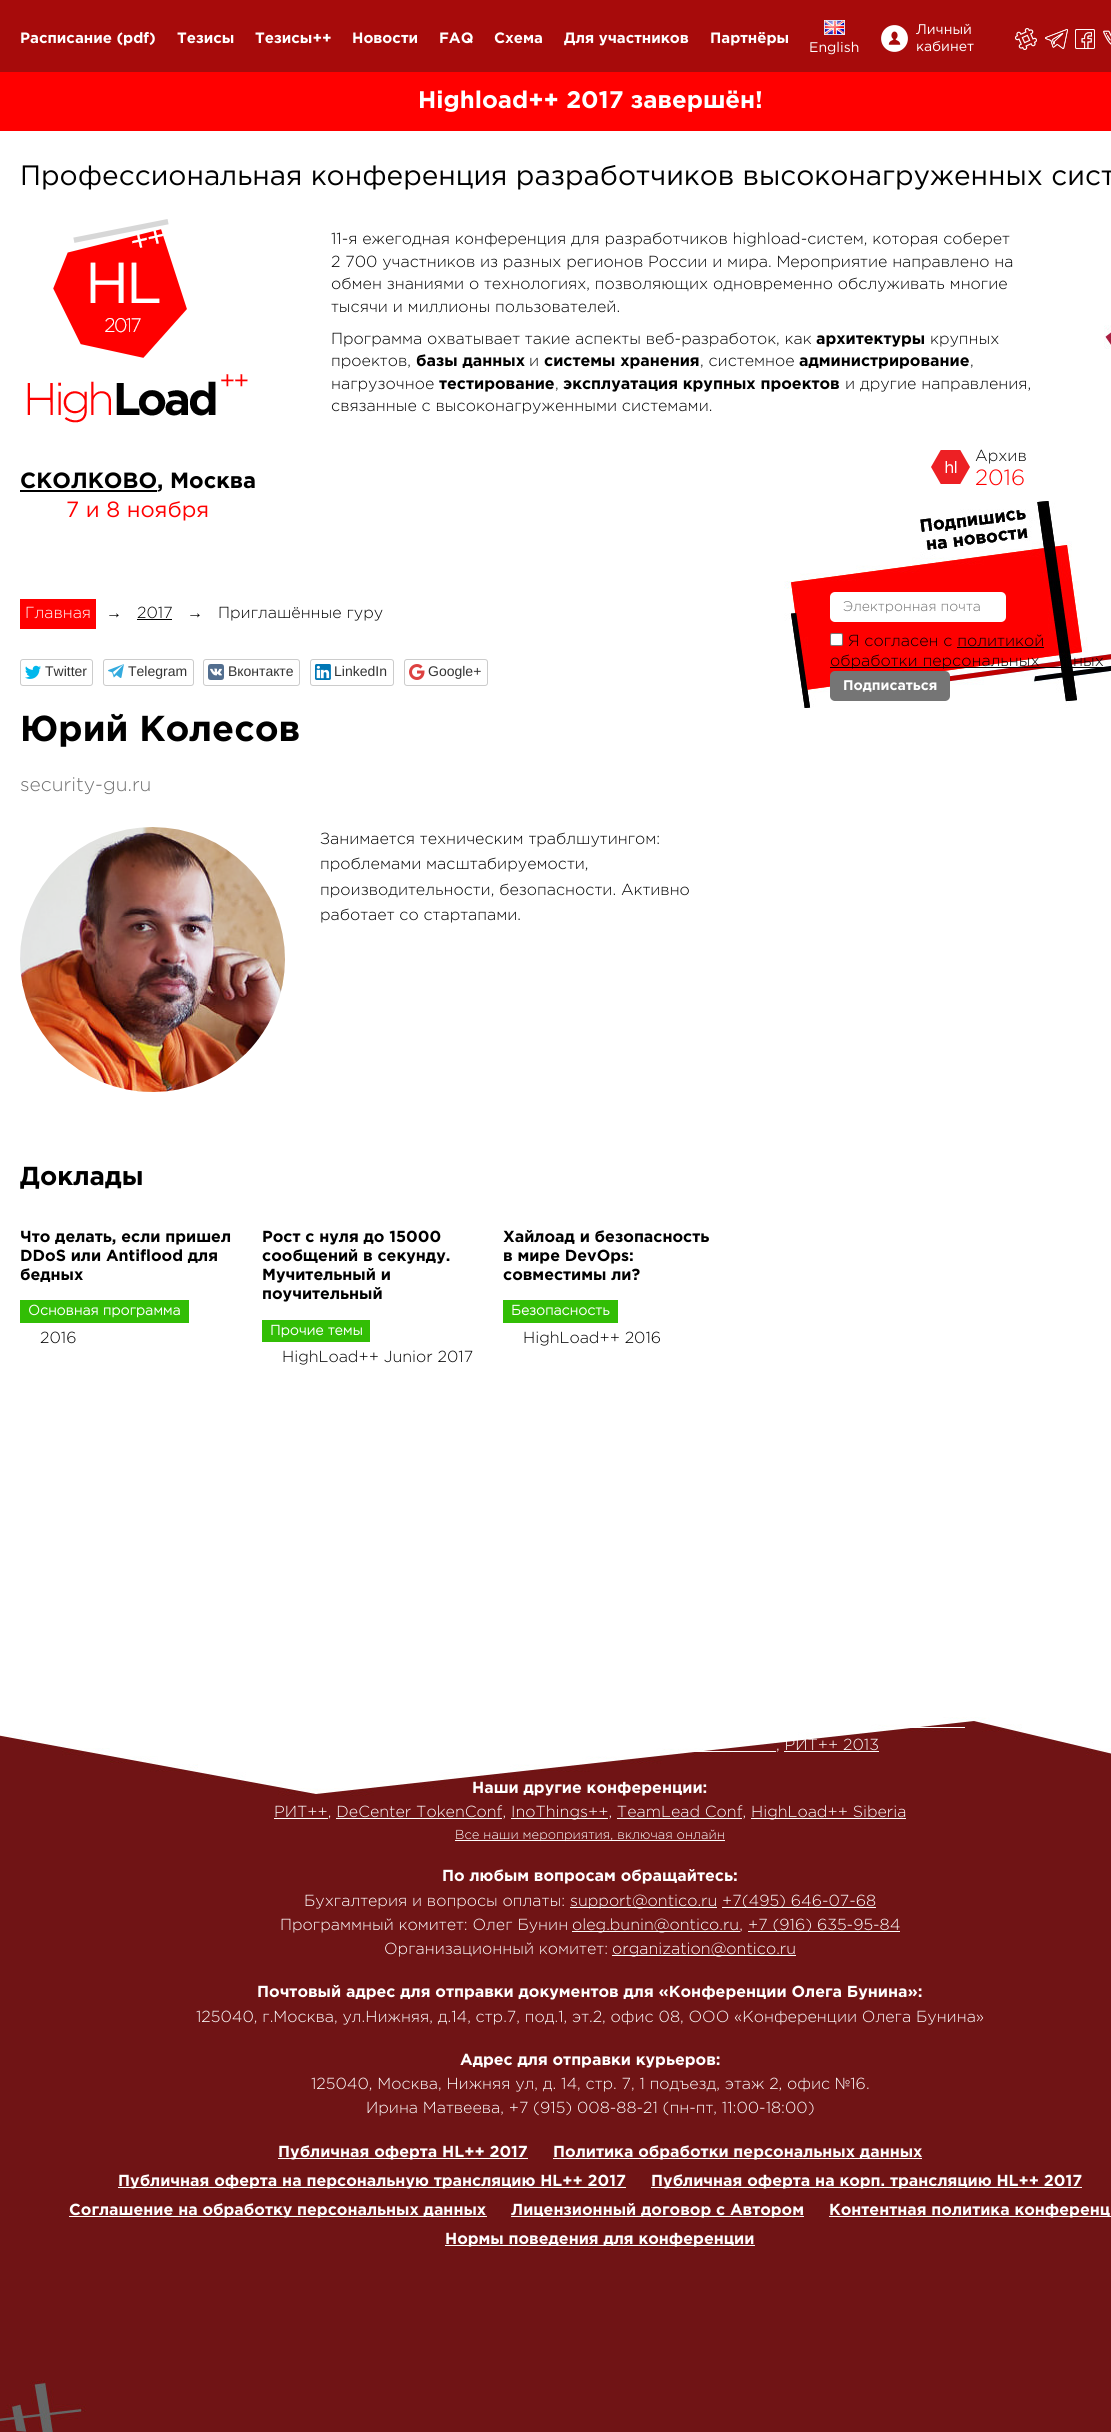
#include <cairo.h>
#include <math.h>
#include <stddef.h>

static cairo_t *ctx;

static void use_color(int r, int g, int b) {
    cairo_set_source_rgb(ctx, r / 255.0, g / 255.0, b / 255.0);
}

static void round_rect(double x, double y, double w, double h, double r) {
    cairo_new_sub_path(ctx);
    cairo_arc(ctx, x + w - r, y + h - r, r, 0, M_PI / 2);
    cairo_arc(ctx, x + r, y + h - r, r, M_PI / 2, M_PI);
    cairo_arc(ctx, x + r, y + r, r, M_PI, 1.5 * M_PI);
    cairo_arc(ctx, x + w - r, y + r, r, 1.5 * M_PI, 2 * M_PI);
    cairo_close_path(ctx);
}

static void picture(const char *path, double x, double y, double w, double h) {
    cairo_surface_t *image = cairo_image_surface_create_from_png(path);
    cairo_save(ctx);
    cairo_set_source_surface(ctx, image, x, y);
    cairo_rectangle(ctx, x, y, w, h);
    cairo_fill(ctx);
    cairo_restore(ctx);
    cairo_surface_destroy(image);
}

int main(void) {
    cairo_surface_t *surface = cairo_image_surface_create(CAIRO_FORMAT_RGB24, 1111, 2432);
    ctx = cairo_create(surface);
    cairo_font_options_t *options = cairo_font_options_create();
    cairo_font_options_set_hint_metrics(options, CAIRO_HINT_METRICS_OFF);
    cairo_font_options_set_hint_style(options, CAIRO_HINT_STYLE_NONE);
    cairo_set_font_options(ctx, options);
    cairo_set_miter_limit(ctx, 4);
    use_color(255, 255, 255);
    cairo_paint(ctx);
    picture("img1.png", 0, 1717, 1111, 715);
    picture("img2.png", 784, 325, 327, 383);
    use_color(167, 11, 11);
    cairo_rectangle(ctx, 0, 0, 1111, 72);
    cairo_fill(ctx);
    cairo_select_font_face(ctx, "Gotham", CAIRO_FONT_SLANT_NORMAL, CAIRO_FONT_WEIGHT_BOLD);
    cairo_set_font_size(ctx, 15);
    use_color(255, 255, 255);
    cairo_move_to(ctx, 20, 43);
    cairo_show_text(ctx, "Расписание (pdf)");
    cairo_move_to(ctx, 177, 43);
    cairo_show_text(ctx, "Тезисы");
    cairo_move_to(ctx, 255, 43);
    cairo_show_text(ctx, "Тезисы++");
    cairo_move_to(ctx, 352, 43);
    cairo_show_text(ctx, "Новости");
    cairo_move_to(ctx, 439, 43);
    cairo_show_text(ctx, "FAQ");
    cairo_move_to(ctx, 494, 43);
    cairo_show_text(ctx, "Схема");
    cairo_move_to(ctx, 564, 43);
    cairo_show_text(ctx, "Для участников");
    cairo_move_to(ctx, 710, 43);
    cairo_show_text(ctx, "Партнёры");
    picture("img3.png", 881, 25, 27, 27);
    cairo_select_font_face(ctx, "Gotham", CAIRO_FONT_SLANT_NORMAL, CAIRO_FONT_WEIGHT_NORMAL);
    cairo_set_font_size(ctx, 14);
    cairo_move_to(ctx, 916, 34);
    cairo_show_text(ctx, "Личный");
    cairo_move_to(ctx, 916, 51);
    cairo_show_text(ctx, "кабинет");
    picture("img4.png", 1015, 28, 22, 22);
    picture("img5.png", 1045, 29, 23, 20);
    picture("img6.png", 1075, 29, 20, 20);
    picture("img7.png", 1103, 30, 8, 15);
    picture("img8.png", 824, 20, 21, 15);
    cairo_move_to(ctx, 809, 52);
    cairo_show_text(ctx, "English");
    use_color(255, 0, 0);
    cairo_rectangle(ctx, 0, 72, 1111, 59);
    cairo_fill(ctx);
    cairo_select_font_face(ctx, "Gotham", CAIRO_FONT_SLANT_NORMAL, CAIRO_FONT_WEIGHT_BOLD);
    cairo_set_font_size(ctx, 24);
    use_color(255, 255, 255);
    cairo_move_to(ctx, 418, 108);
    cairo_show_text(ctx, "Highload++ 2017 завершён!");
    cairo_select_font_face(ctx, "Gotham", CAIRO_FONT_SLANT_NORMAL, CAIRO_FONT_WEIGHT_NORMAL);
    cairo_set_font_size(ctx, 28);
    use_color(0, 0, 0);
    cairo_move_to(ctx, 20, 185);
    cairo_show_text(ctx, "Профессиональная конференция разработчиков высоконагруженных сист");
    cairo_select_font_face(ctx, "Gotham Light", CAIRO_FONT_SLANT_NORMAL, CAIRO_FONT_WEIGHT_NORMAL);
    cairo_set_font_size(ctx, 16);
    cairo_move_to(ctx, 331, 244);
    cairo_show_text(ctx, "11-я ежегодная конференция для разработчиков highload-систем, которая соберет");
    cairo_move_to(ctx, 331, 267);
    cairo_show_text(ctx, "2 700 участников из разных регионов России и мира. Мероприятие направлено на");
    cairo_move_to(ctx, 331, 289);
    cairo_show_text(ctx, "обмен знаниями о технологиях, позволяющих одновременно обслуживать многие");
    cairo_move_to(ctx, 331, 312);
    cairo_show_text(ctx, "тысячи и миллионы пользователей.");
    cairo_move_to(ctx, 331, 344);
    cairo_show_text(ctx, "Программа охватывает такие аспекты веб-разработок, как");
    cairo_select_font_face(ctx, "Gotham", CAIRO_FONT_SLANT_NORMAL, CAIRO_FONT_WEIGHT_BOLD);
    cairo_move_to(ctx, 816, 344);
    cairo_show_text(ctx, "архитектуры");
    cairo_select_font_face(ctx, "Gotham Light", CAIRO_FONT_SLANT_NORMAL, CAIRO_FONT_WEIGHT_NORMAL);
    cairo_move_to(ctx, 930, 344);
    cairo_show_text(ctx, "крупных");
    cairo_move_to(ctx, 331, 366);
    cairo_show_text(ctx, "проектов,");
    cairo_select_font_face(ctx, "Gotham", CAIRO_FONT_SLANT_NORMAL, CAIRO_FONT_WEIGHT_BOLD);
    cairo_move_to(ctx, 416, 366);
    cairo_show_text(ctx, "базы данных");
    cairo_select_font_face(ctx, "Gotham Light", CAIRO_FONT_SLANT_NORMAL, CAIRO_FONT_WEIGHT_NORMAL);
    cairo_move_to(ctx, 529, 366);
    cairo_show_text(ctx, "и");
    cairo_select_font_face(ctx, "Gotham", CAIRO_FONT_SLANT_NORMAL, CAIRO_FONT_WEIGHT_BOLD);
    cairo_move_to(ctx, 544, 366);
    cairo_show_text(ctx, "системы хранения");
    cairo_select_font_face(ctx, "Gotham Light", CAIRO_FONT_SLANT_NORMAL, CAIRO_FONT_WEIGHT_NORMAL);
    cairo_move_to(ctx, 700, 366);
    cairo_show_text(ctx, ", системное");
    cairo_select_font_face(ctx, "Gotham", CAIRO_FONT_SLANT_NORMAL, CAIRO_FONT_WEIGHT_BOLD);
    cairo_move_to(ctx, 799, 366);
    cairo_show_text(ctx, "администрирование");
    cairo_select_font_face(ctx, "Gotham Light", CAIRO_FONT_SLANT_NORMAL, CAIRO_FONT_WEIGHT_NORMAL);
    cairo_move_to(ctx, 970, 366);
    cairo_show_text(ctx, ",");
    cairo_move_to(ctx, 331, 389);
    cairo_show_text(ctx, "нагрузочное");
    cairo_select_font_face(ctx, "Gotham", CAIRO_FONT_SLANT_NORMAL, CAIRO_FONT_WEIGHT_BOLD);
    cairo_move_to(ctx, 439, 389);
    cairo_show_text(ctx, "тестирование");
    cairo_select_font_face(ctx, "Gotham Light", CAIRO_FONT_SLANT_NORMAL, CAIRO_FONT_WEIGHT_NORMAL);
    cairo_move_to(ctx, 555, 389);
    cairo_show_text(ctx, ",");
    cairo_select_font_face(ctx, "Gotham", CAIRO_FONT_SLANT_NORMAL, CAIRO_FONT_WEIGHT_BOLD);
    cairo_move_to(ctx, 563, 389);
    cairo_show_text(ctx, "эксплуатация крупных проектов");
    cairo_select_font_face(ctx, "Gotham Light", CAIRO_FONT_SLANT_NORMAL, CAIRO_FONT_WEIGHT_NORMAL);
    cairo_move_to(ctx, 845, 389);
    cairo_show_text(ctx, "и другие направления,");
    cairo_move_to(ctx, 331, 411);
    cairo_show_text(ctx, "связанные с высоконагруженными системами.");
    picture("img9.png", 931, 450, 39, 34);
    cairo_move_to(ctx, 975, 461);
    cairo_show_text(ctx, "Архив");
    cairo_set_font_size(ctx, 22);
    use_color(255, 0, 0);
    cairo_move_to(ctx, 975, 485);
    cairo_show_text(ctx, "2016");
    picture("img10.png", 27, 219, 221, 204);
    use_color(0, 0, 0);
    cairo_rectangle(ctx, 20, 490, 137, 2);
    cairo_fill(ctx);
    cairo_select_font_face(ctx, "Gotham", CAIRO_FONT_SLANT_NORMAL, CAIRO_FONT_WEIGHT_BOLD);
    cairo_move_to(ctx, 20, 488);
    cairo_show_text(ctx, "СКОЛКОВО, Москва");
    cairo_select_font_face(ctx, "Gotham", CAIRO_FONT_SLANT_NORMAL, CAIRO_FONT_WEIGHT_NORMAL);
    use_color(255, 0, 0);
    cairo_move_to(ctx, 66, 517);
    cairo_show_text(ctx, "7 и 8 ноября");
    cairo_rectangle(ctx, 20, 599, 76, 30);
    cairo_fill(ctx);
    cairo_select_font_face(ctx, "Gotham Light", CAIRO_FONT_SLANT_NORMAL, CAIRO_FONT_WEIGHT_NORMAL);
    cairo_set_font_size(ctx, 16);
    use_color(255, 255, 255);
    cairo_move_to(ctx, 25, 618);
    cairo_show_text(ctx, "Главная");
    cairo_select_font_face(ctx, "Liberation Serif", CAIRO_FONT_SLANT_NORMAL, CAIRO_FONT_WEIGHT_NORMAL);
    use_color(0, 0, 0);
    cairo_move_to(ctx, 106, 618);
    cairo_show_text(ctx, "→");
    cairo_select_font_face(ctx, "Gotham Light", CAIRO_FONT_SLANT_NORMAL, CAIRO_FONT_WEIGHT_NORMAL);
    cairo_move_to(ctx, 137, 618);
    cairo_show_text(ctx, "2017");
    cairo_rectangle(ctx, 137, 619, 35, 1);
    cairo_fill(ctx);
    cairo_select_font_face(ctx, "Liberation Serif", CAIRO_FONT_SLANT_NORMAL, CAIRO_FONT_WEIGHT_NORMAL);
    cairo_move_to(ctx, 187, 618);
    cairo_show_text(ctx, "→");
    cairo_select_font_face(ctx, "Gotham Light", CAIRO_FONT_SLANT_NORMAL, CAIRO_FONT_WEIGHT_NORMAL);
    cairo_move_to(ctx, 218, 618);
    cairo_show_text(ctx, "Приглашённые гуру");
    round_rect(20.5, 659.5, 72, 26, 2.5);
    use_color(204, 204, 204);
    cairo_set_line_width(ctx, 1);
    cairo_stroke(ctx);
    picture("img11.png", 25, 665, 16, 14);
    cairo_select_font_face(ctx, "Liberation Sans", CAIRO_FONT_SLANT_NORMAL, CAIRO_FONT_WEIGHT_NORMAL);
    cairo_set_font_size(ctx, 14);
    use_color(51, 51, 51);
    cairo_move_to(ctx, 45, 676);
    cairo_show_text(ctx, "Twitter");
    round_rect(103.5, 659.5, 90, 26, 2.5);
    use_color(204, 204, 204);
    cairo_stroke(ctx);
    picture("img12.png", 108, 664, 16, 14);
    use_color(51, 51, 51);
    cairo_move_to(ctx, 128, 676);
    cairo_show_text(ctx, "Telegram");
    round_rect(203.5, 659.5, 96, 26, 2.5);
    use_color(204, 204, 204);
    cairo_stroke(ctx);
    picture("img13.png", 208, 664, 16, 16);
    use_color(51, 51, 51);
    cairo_move_to(ctx, 228, 676);
    cairo_show_text(ctx, "Вконтакте");
    round_rect(310.5, 659.5, 83, 26, 2.5);
    use_color(204, 204, 204);
    cairo_stroke(ctx);
    picture("img14.png", 315, 664, 16, 16);
    use_color(51, 51, 51);
    cairo_move_to(ctx, 334, 676);
    cairo_show_text(ctx, "LinkedIn");
    round_rect(404.5, 659.5, 83, 26, 2.5);
    use_color(204, 204, 204);
    cairo_stroke(ctx);
    picture("img15.png", 409, 664, 16, 16);
    use_color(51, 51, 51);
    cairo_move_to(ctx, 428, 676);
    cairo_show_text(ctx, "Google+");
    cairo_select_font_face(ctx, "Gotham", CAIRO_FONT_SLANT_NORMAL, CAIRO_FONT_WEIGHT_BOLD);
    cairo_set_font_size(ctx, 36);
    use_color(0, 0, 0);
    cairo_move_to(ctx, 20, 741);
    cairo_show_text(ctx, "Юрий Колесов");
    cairo_select_font_face(ctx, "Gotham Light", CAIRO_FONT_SLANT_NORMAL, CAIRO_FONT_WEIGHT_NORMAL);
    cairo_set_font_size(ctx, 19.25);
    use_color(112, 112, 112);
    cairo_move_to(ctx, 20, 791);
    cairo_show_text(ctx, "security-gu.ru");
    picture("img16.png", 20, 827, 265, 265);
    cairo_set_font_size(ctx, 16);
    use_color(0, 0, 0);
    cairo_move_to(ctx, 320, 844);
    cairo_show_text(ctx, "Занимается техническим траблшутингом:");
    cairo_move_to(ctx, 320, 869);
    cairo_show_text(ctx, "проблемами масштабируемости,");
    cairo_move_to(ctx, 320, 895);
    cairo_show_text(ctx, "производительности, безопасности. Активно");
    cairo_move_to(ctx, 320, 920);
    cairo_show_text(ctx, "работает со стартапами.");
    cairo_select_font_face(ctx, "Gotham", CAIRO_FONT_SLANT_NORMAL, CAIRO_FONT_WEIGHT_BOLD);
    cairo_set_font_size(ctx, 26);
    cairo_move_to(ctx, 20, 1185);
    cairo_show_text(ctx, "Доклады");
    cairo_set_font_size(ctx, 16);
    cairo_move_to(ctx, 20, 1242);
    cairo_show_text(ctx, "Что делать, если пришел");
    cairo_move_to(ctx, 20, 1261);
    cairo_show_text(ctx, "DDoS или Antiflood для");
    cairo_move_to(ctx, 20, 1280);
    cairo_show_text(ctx, "бедных");
    use_color(50, 190, 5);
    cairo_rectangle(ctx, 20, 1300, 169, 23);
    cairo_fill(ctx);
    cairo_select_font_face(ctx, "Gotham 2", CAIRO_FONT_SLANT_NORMAL, CAIRO_FONT_WEIGHT_BOLD);
    cairo_set_font_size(ctx, 14);
    use_color(255, 255, 255);
    cairo_move_to(ctx, 28, 1315);
    cairo_show_text(ctx, "Основная программа");
    cairo_select_font_face(ctx, "Gotham Light", CAIRO_FONT_SLANT_NORMAL, CAIRO_FONT_WEIGHT_NORMAL);
    cairo_set_font_size(ctx, 16);
    use_color(0, 0, 0);
    cairo_move_to(ctx, 40, 1343);
    cairo_show_text(ctx, "2016");
    cairo_select_font_face(ctx, "Gotham", CAIRO_FONT_SLANT_NORMAL, CAIRO_FONT_WEIGHT_BOLD);
    cairo_move_to(ctx, 262, 1242);
    cairo_show_text(ctx, "Рост с нуля до 15000");
    cairo_move_to(ctx, 262, 1261);
    cairo_show_text(ctx, "сообщений в секунду.");
    cairo_move_to(ctx, 262, 1280);
    cairo_show_text(ctx, "Мучительный и");
    cairo_move_to(ctx, 262, 1299);
    cairo_show_text(ctx, "поучительный");
    use_color(50, 190, 5);
    cairo_rectangle(ctx, 262, 1320, 108, 22);
    cairo_fill(ctx);
    cairo_select_font_face(ctx, "Gotham 2", CAIRO_FONT_SLANT_NORMAL, CAIRO_FONT_WEIGHT_BOLD);
    cairo_set_font_size(ctx, 14);
    use_color(255, 255, 255);
    cairo_move_to(ctx, 270, 1335);
    cairo_show_text(ctx, "Прочие темы");
    cairo_select_font_face(ctx, "Gotham Light", CAIRO_FONT_SLANT_NORMAL, CAIRO_FONT_WEIGHT_NORMAL);
    cairo_set_font_size(ctx, 16);
    use_color(0, 0, 0);
    cairo_move_to(ctx, 282, 1362);
    cairo_show_text(ctx, "HighLoad++ Junior 2017");
    cairo_select_font_face(ctx, "Gotham", CAIRO_FONT_SLANT_NORMAL, CAIRO_FONT_WEIGHT_BOLD);
    cairo_move_to(ctx, 503, 1242);
    cairo_show_text(ctx, "Хайлоад и безопасность");
    cairo_move_to(ctx, 503, 1261);
    cairo_show_text(ctx, "в мире DevOps:");
    cairo_move_to(ctx, 503, 1280);
    cairo_show_text(ctx, "совместимы ли?");
    use_color(50, 190, 5);
    cairo_rectangle(ctx, 503, 1300, 115, 23);
    cairo_fill(ctx);
    cairo_select_font_face(ctx, "Gotham 2", CAIRO_FONT_SLANT_NORMAL, CAIRO_FONT_WEIGHT_BOLD);
    cairo_set_font_size(ctx, 14);
    use_color(255, 255, 255);
    cairo_move_to(ctx, 511, 1315);
    cairo_show_text(ctx, "Безопасность");
    cairo_select_font_face(ctx, "Gotham Light", CAIRO_FONT_SLANT_NORMAL, CAIRO_FONT_WEIGHT_NORMAL);
    cairo_set_font_size(ctx, 16);
    use_color(0, 0, 0);
    cairo_move_to(ctx, 523, 1343);
    cairo_show_text(ctx, "HighLoad++ 2016");
    use_color(255, 255, 255);
    round_rect(830, 592, 176, 30, 5);
    cairo_fill(ctx);
    cairo_set_font_size(ctx, 14);
    use_color(112, 112, 112);
    cairo_move_to(ctx, 843, 611);
    cairo_show_text(ctx, "Электронная почта");
    use_color(255, 255, 255);
    round_rect(830.5, 633.5, 12, 12, 1.5);
    cairo_fill_preserve(ctx);
    use_color(118, 118, 118);
    cairo_stroke(ctx);
    cairo_set_font_size(ctx, 16);
    use_color(0, 0, 0);
    cairo_move_to(ctx, 848, 646);
    cairo_show_text(ctx, "Я согласен с политикой");
    cairo_rectangle(ctx, 830, 667, 274, 1);
    cairo_fill(ctx);
    cairo_move_to(ctx, 830, 666);
    cairo_show_text(ctx, "обработки персональных");
    cairo_rectangle(ctx, 957, 647, 87, 1);
    cairo_fill(ctx);
    cairo_move_to(ctx, 1073, 666);
    cairo_show_text(ctx, "ных");
    use_color(117, 117, 117);
    round_rect(830, 671, 120, 30, 5);
    cairo_fill(ctx);
    cairo_select_font_face(ctx, "Gotham", CAIRO_FONT_SLANT_NORMAL, CAIRO_FONT_WEIGHT_BOLD);
    cairo_set_font_size(ctx, 14);
    use_color(255, 255, 255);
    cairo_move_to(ctx, 843, 690);
    cairo_show_text(ctx, "Подписаться");
    cairo_rectangle(ctx, 884, 1727, 81, 1);
    cairo_fill(ctx);
    cairo_rectangle(ctx, 658, 1751, 7, 1);
    cairo_fill(ctx);
    cairo_rectangle(ctx, 681, 1751, 95, 1);
    cairo_fill(ctx);
    cairo_select_font_face(ctx, "Gotham Light", CAIRO_FONT_SLANT_NORMAL, CAIRO_FONT_WEIGHT_NORMAL);
    cairo_set_font_size(ctx, 16);
    cairo_move_to(ctx, 776, 1750);
    cairo_show_text(ctx, ", РИТ++ 2013");
    cairo_rectangle(ctx, 784, 1751, 95, 1);
    cairo_fill(ctx);
    cairo_select_font_face(ctx, "Gotham", CAIRO_FONT_SLANT_NORMAL, CAIRO_FONT_WEIGHT_BOLD);
    cairo_move_to(ctx, 472, 1793);
    cairo_show_text(ctx, "Наши другие конференции:");
    cairo_rectangle(ctx, 274, 1818, 54, 1);
    cairo_fill(ctx);
    cairo_select_font_face(ctx, "Gotham Light", CAIRO_FONT_SLANT_NORMAL, CAIRO_FONT_WEIGHT_NORMAL);
    cairo_move_to(ctx, 274, 1817);
    cairo_show_text(ctx, "РИТ++, DeCenter TokenConf,");
    cairo_rectangle(ctx, 511, 1818, 97, 1);
    cairo_fill(ctx);
    cairo_move_to(ctx, 511, 1817);
    cairo_show_text(ctx, "InoThings++, TeamLead Conf,");
    cairo_rectangle(ctx, 751, 1818, 155, 1);
    cairo_fill(ctx);
    cairo_move_to(ctx, 751, 1817);
    cairo_show_text(ctx, "HighLoad++ Siberia");
    cairo_rectangle(ctx, 336, 1818, 166, 1);
    cairo_fill(ctx);
    cairo_rectangle(ctx, 617, 1818, 125, 1);
    cairo_fill(ctx);
    cairo_rectangle(ctx, 455, 1840, 270, 1);
    cairo_fill(ctx);
    cairo_set_font_size(ctx, 13);
    cairo_move_to(ctx, 455, 1839);
    cairo_show_text(ctx, "Все наши мероприятия, включая онлайн");
    cairo_select_font_face(ctx, "Gotham", CAIRO_FONT_SLANT_NORMAL, CAIRO_FONT_WEIGHT_BOLD);
    cairo_set_font_size(ctx, 16);
    cairo_move_to(ctx, 442, 1881);
    cairo_show_text(ctx, "По любым вопросам обращайтесь:");
    cairo_select_font_face(ctx, "Gotham Light", CAIRO_FONT_SLANT_NORMAL, CAIRO_FONT_WEIGHT_NORMAL);
    cairo_move_to(ctx, 304, 1906);
    cairo_show_text(ctx, "Бухгалтерия и вопросы оплаты:");
    cairo_rectangle(ctx, 570, 1907, 147, 1);
    cairo_fill(ctx);
    cairo_move_to(ctx, 570, 1906);
    cairo_show_text(ctx, "support@ontico.ru");
    cairo_rectangle(ctx, 722, 1907, 154, 1);
    cairo_fill(ctx);
    cairo_move_to(ctx, 722, 1906);
    cairo_show_text(ctx, "+7(495) 646-07-68");
    cairo_move_to(ctx, 280, 1930);
    cairo_show_text(ctx, "Программный комитет: Олег Бунин");
    cairo_rectangle(ctx, 572, 1931, 168, 1);
    cairo_fill(ctx);
    cairo_move_to(ctx, 572, 1930);
    cairo_show_text(ctx, "oleg.bunin@ontico.ru,");
    cairo_rectangle(ctx, 748, 1931, 152, 1);
    cairo_fill(ctx);
    cairo_move_to(ctx, 748, 1930);
    cairo_show_text(ctx, "+7 (916) 635-95-84");
    cairo_move_to(ctx, 384, 1954);
    cairo_show_text(ctx, "Организационный комитет:");
    cairo_rectangle(ctx, 612, 1955, 184, 1);
    cairo_fill(ctx);
    cairo_move_to(ctx, 612, 1954);
    cairo_show_text(ctx, "organization@ontico.ru");
    cairo_select_font_face(ctx, "Gotham", CAIRO_FONT_SLANT_NORMAL, CAIRO_FONT_WEIGHT_BOLD);
    cairo_move_to(ctx, 257, 1997);
    cairo_show_text(ctx, "Почтовый адрес для отправки документов для «Конференции Олега Бунина»:");
    cairo_select_font_face(ctx, "Gotham Light", CAIRO_FONT_SLANT_NORMAL, CAIRO_FONT_WEIGHT_NORMAL);
    cairo_move_to(ctx, 196, 2022);
    cairo_show_text(ctx, "125040, г.Москва, ул.Нижняя, д.14, стр.7, под.1, эт.2, офис 08, ООО «Конференции Олега Бунина»");
    cairo_select_font_face(ctx, "Gotham", CAIRO_FONT_SLANT_NORMAL, CAIRO_FONT_WEIGHT_BOLD);
    cairo_move_to(ctx, 460, 2065);
    cairo_show_text(ctx, "Адрес для отправки курьеров:");
    cairo_select_font_face(ctx, "Gotham Light", CAIRO_FONT_SLANT_NORMAL, CAIRO_FONT_WEIGHT_NORMAL);
    cairo_move_to(ctx, 311, 2089);
    cairo_show_text(ctx, "125040, Москва, Нижняя ул, д. 14, стр. 7, 1 подъезд, этаж 2, офис №16.");
    cairo_move_to(ctx, 366, 2113);
    cairo_show_text(ctx, "Ирина Матвеева, +7 (915) 008-88-21 (пн-пт, 11:00-18:00)");
    cairo_rectangle(ctx, 278, 2158, 250, 1);
    cairo_fill(ctx);
    cairo_select_font_face(ctx, "Gotham", CAIRO_FONT_SLANT_NORMAL, CAIRO_FONT_WEIGHT_BOLD);
    cairo_move_to(ctx, 278, 2157);
    cairo_show_text(ctx, "Публичная оферта HL++ 2017");
    cairo_rectangle(ctx, 553, 2158, 369, 1);
    cairo_fill(ctx);
    cairo_move_to(ctx, 553, 2157);
    cairo_show_text(ctx, "Политика обработки персональных данных");
    cairo_rectangle(ctx, 118, 2187, 508, 1);
    cairo_fill(ctx);
    cairo_move_to(ctx, 118, 2186);
    cairo_show_text(ctx, "Публичная оферта на персональную трансляцию HL++ 2017");
    cairo_rectangle(ctx, 651, 2187, 431, 1);
    cairo_fill(ctx);
    cairo_move_to(ctx, 651, 2186);
    cairo_show_text(ctx, "Публичная оферта на корп. трансляцию HL++ 2017");
    cairo_rectangle(ctx, 69, 2216, 418, 1);
    cairo_fill(ctx);
    cairo_move_to(ctx, 69, 2215);
    cairo_show_text(ctx, "Соглашение на обработку персональных данных");
    cairo_rectangle(ctx, 511, 2216, 293, 1);
    cairo_fill(ctx);
    cairo_move_to(ctx, 511, 2215);
    cairo_show_text(ctx, "Лицензионный договор с Автором");
    cairo_rectangle(ctx, 829, 2216, 282, 1);
    cairo_fill(ctx);
    cairo_move_to(ctx, 829, 2215);
    cairo_show_text(ctx, "Контентная политика конференц");
    cairo_rectangle(ctx, 445, 2245, 310, 1);
    cairo_fill(ctx);
    cairo_move_to(ctx, 445, 2244);
    cairo_show_text(ctx, "Нормы поведения для конференции");
    cairo_surface_write_to_png(surface, "result.png");
    cairo_font_options_destroy(options);
    cairo_destroy(ctx);
    cairo_surface_destroy(surface);
    return 0;
}
